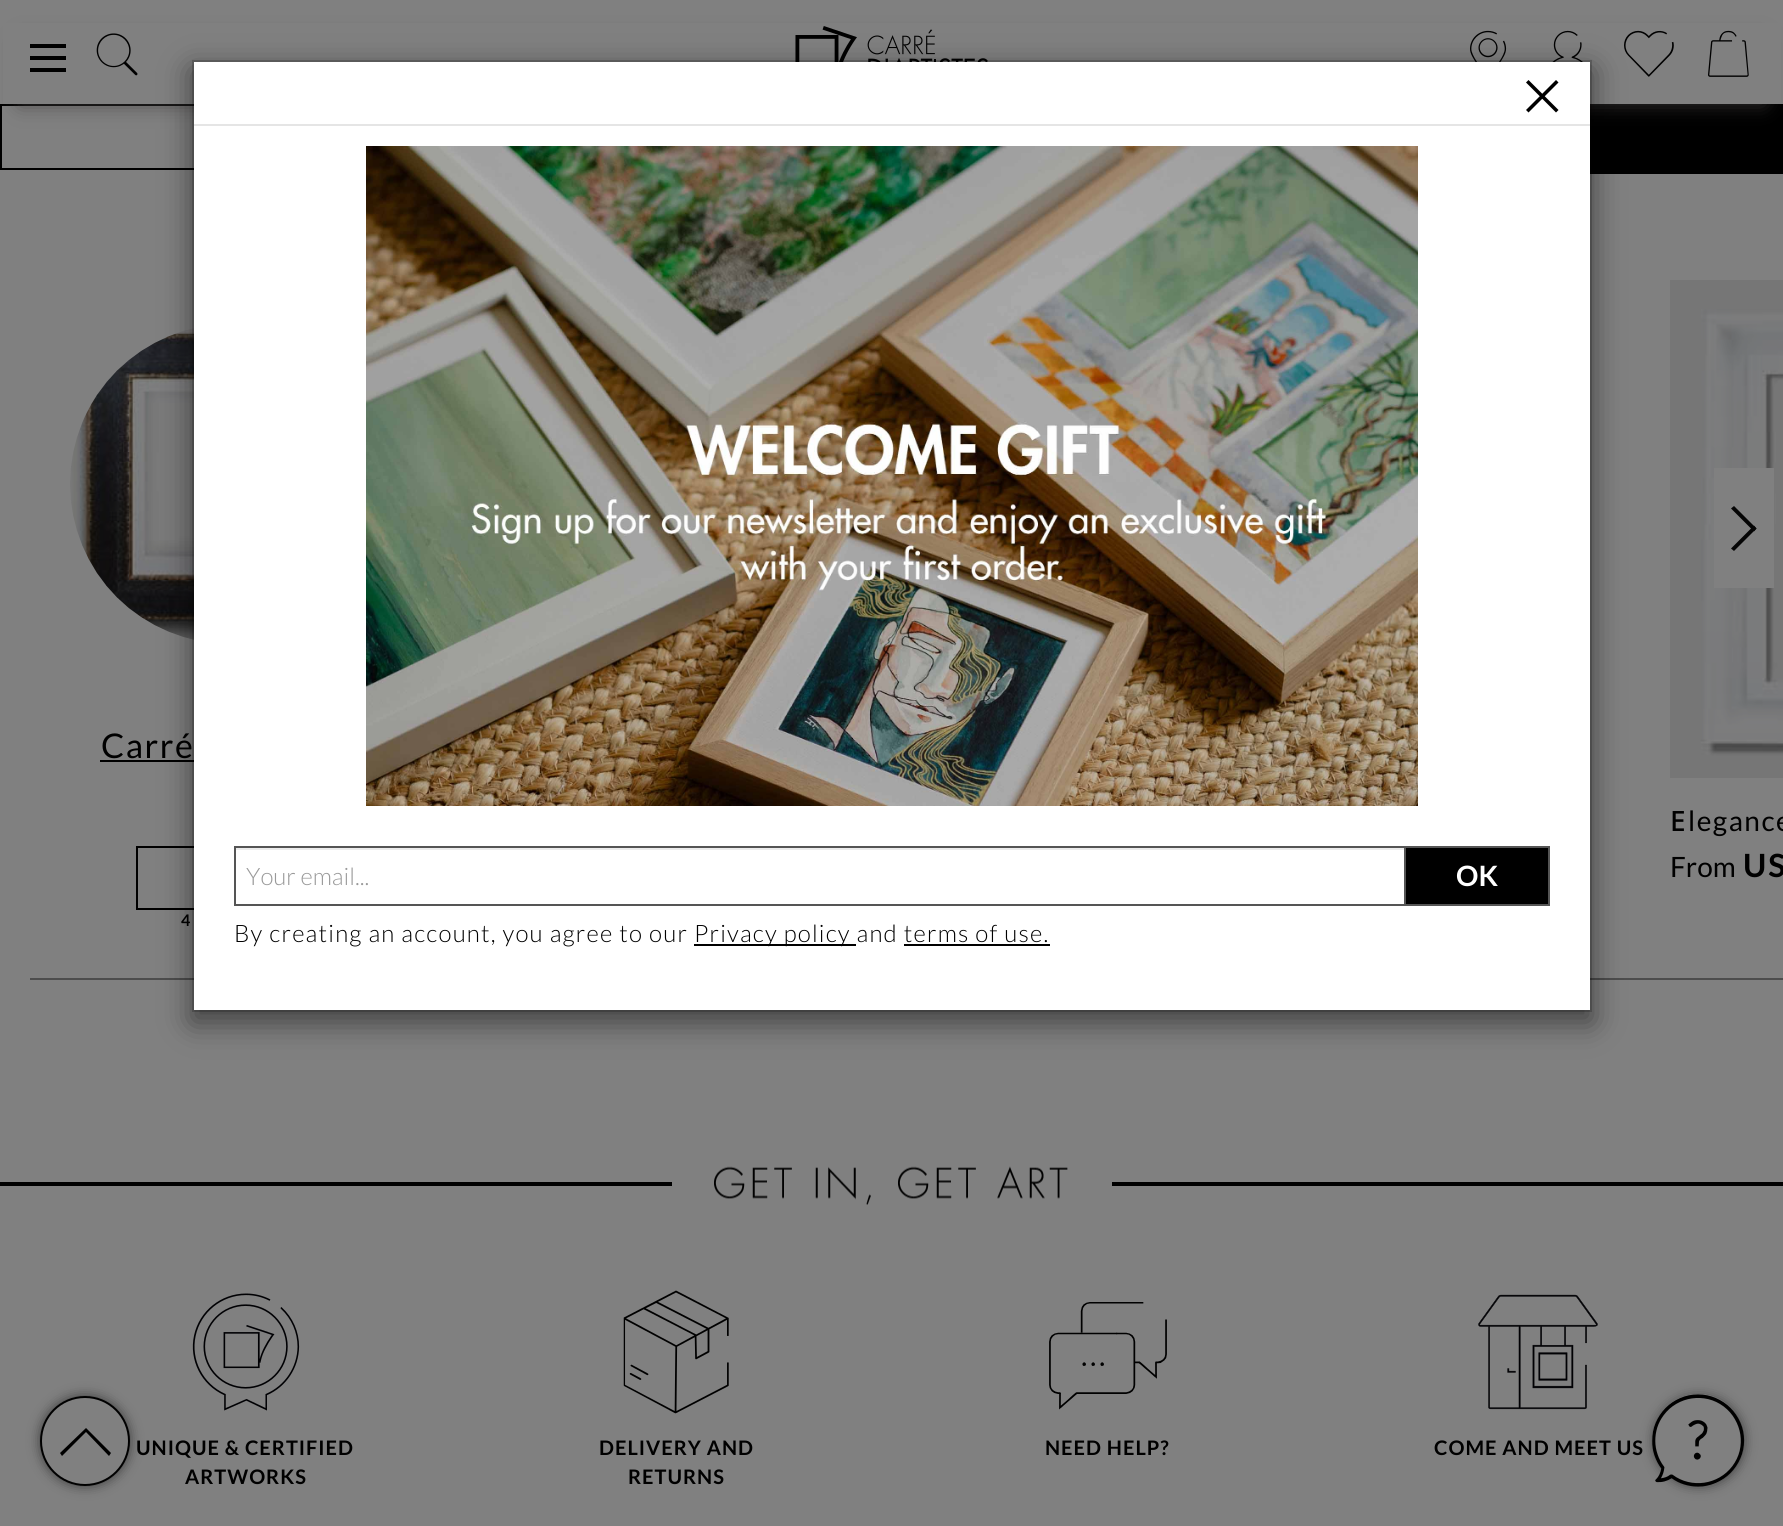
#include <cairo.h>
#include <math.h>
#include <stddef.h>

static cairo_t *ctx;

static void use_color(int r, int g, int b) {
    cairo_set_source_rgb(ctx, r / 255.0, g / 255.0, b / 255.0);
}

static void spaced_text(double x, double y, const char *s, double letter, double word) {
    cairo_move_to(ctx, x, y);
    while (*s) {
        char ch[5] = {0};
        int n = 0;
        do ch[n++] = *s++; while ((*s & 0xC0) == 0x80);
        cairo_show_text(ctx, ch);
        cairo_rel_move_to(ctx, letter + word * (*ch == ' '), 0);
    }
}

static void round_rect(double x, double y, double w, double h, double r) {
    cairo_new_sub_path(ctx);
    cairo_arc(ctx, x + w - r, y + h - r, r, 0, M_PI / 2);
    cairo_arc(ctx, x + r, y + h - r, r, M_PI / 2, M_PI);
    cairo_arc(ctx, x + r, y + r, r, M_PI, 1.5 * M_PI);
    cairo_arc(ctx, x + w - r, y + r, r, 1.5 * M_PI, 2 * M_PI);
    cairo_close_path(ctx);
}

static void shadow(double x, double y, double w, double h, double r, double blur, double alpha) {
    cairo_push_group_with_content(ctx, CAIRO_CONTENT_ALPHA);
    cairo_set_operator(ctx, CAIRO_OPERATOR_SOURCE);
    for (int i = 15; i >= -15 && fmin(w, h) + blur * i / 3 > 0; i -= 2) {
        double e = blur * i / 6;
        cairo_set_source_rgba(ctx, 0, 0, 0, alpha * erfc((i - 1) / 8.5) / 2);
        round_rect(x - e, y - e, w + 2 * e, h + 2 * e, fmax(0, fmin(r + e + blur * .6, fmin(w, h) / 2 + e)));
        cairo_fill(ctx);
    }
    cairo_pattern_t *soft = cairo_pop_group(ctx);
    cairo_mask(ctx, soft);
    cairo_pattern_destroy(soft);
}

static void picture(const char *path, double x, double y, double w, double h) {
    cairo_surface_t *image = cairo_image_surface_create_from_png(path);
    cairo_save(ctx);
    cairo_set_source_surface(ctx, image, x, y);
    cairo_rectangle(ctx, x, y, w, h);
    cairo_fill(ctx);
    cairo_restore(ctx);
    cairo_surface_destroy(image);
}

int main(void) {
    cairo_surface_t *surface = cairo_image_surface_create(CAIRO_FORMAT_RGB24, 1783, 1526);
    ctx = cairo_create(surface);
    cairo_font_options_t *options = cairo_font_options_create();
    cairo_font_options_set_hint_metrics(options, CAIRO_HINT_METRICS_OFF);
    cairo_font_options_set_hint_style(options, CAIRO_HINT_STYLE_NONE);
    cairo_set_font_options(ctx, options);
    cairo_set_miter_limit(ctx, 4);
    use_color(128, 128, 128);
    cairo_paint(ctx);
    cairo_rectangle(ctx, 1, 105, 890, 64);
    use_color(0, 0, 0);
    cairo_stroke(ctx);
    cairo_rectangle(ctx, 1590, 104, 193, 70);
    cairo_fill(ctx);
    use_color(63, 61, 61);
    shadow(20, 40, 1744, 64, 0, 10, 0.8);
    use_color(128, 128, 128);
    cairo_rectangle(ctx, 3, 23, 1778, 81);
    cairo_fill(ctx);
    use_color(0, 0, 0);
    cairo_rectangle(ctx, 30, 44, 36, 4);
    cairo_fill(ctx);
    cairo_rectangle(ctx, 30, 56, 36, 4);
    cairo_fill(ctx);
    cairo_rectangle(ctx, 30, 68, 36, 4);
    cairo_fill(ctx);
    picture("img1.png", 96, 33, 42, 43);
    picture("img2.png", 795, 26, 193, 36);
    picture("img3.png", 1470, 30, 37, 32);
    picture("img4.png", 1552, 30, 31, 32);
    picture("img5.png", 1624, 30, 50, 47);
    picture("img6.png", 1708, 30, 41, 47);
    use_color(77, 77, 77);
    cairo_rectangle(ctx, 30, 978, 1753, 2);
    cairo_fill(ctx);
    picture("img7.png", 70, 328, 124, 312);
    cairo_select_font_face(ctx, "Lato", CAIRO_FONT_SLANT_NORMAL, CAIRO_FONT_WEIGHT_NORMAL);
    cairo_set_font_size(ctx, 34);
    use_color(0, 0, 0);
    spaced_text(101, 758, "Carré", 1.5, 0);
    cairo_rectangle(ctx, 100, 760, 94, 2);
    cairo_fill(ctx);
    cairo_rectangle(ctx, 137, 847, 186, 62);
    cairo_stroke(ctx);
    cairo_select_font_face(ctx, "Lato", CAIRO_FONT_SLANT_NORMAL, CAIRO_FONT_WEIGHT_BOLD);
    cairo_set_font_size(ctx, 16);
    spaced_text(181, 926, "4", 1, 0);
    picture("img8.png", 1670, 280, 113, 498);
    use_color(128, 128, 128);
    cairo_rectangle(ctx, 1714, 468, 60, 120);
    cairo_fill(ctx);
    use_color(5, 5, 5);
    cairo_new_path(ctx);
    cairo_move_to(ctx, 1754, 531.5);
    cairo_line_to(ctx, 1731, 508.5);
    cairo_line_to(ctx, 1734, 506);
    cairo_line_to(ctx, 1756.5, 528.5);
    cairo_close_path(ctx);
    cairo_fill(ctx);
    cairo_new_path(ctx);
    cairo_move_to(ctx, 1734, 551);
    cairo_line_to(ctx, 1731, 548.5);
    cairo_line_to(ctx, 1754, 525.5);
    cairo_line_to(ctx, 1756.5, 528.5);
    cairo_close_path(ctx);
    cairo_fill(ctx);
    cairo_select_font_face(ctx, "Noto Sans Medium", CAIRO_FONT_SLANT_NORMAL, CAIRO_FONT_WEIGHT_NORMAL);
    cairo_set_font_size(ctx, 28);
    use_color(0, 0, 0);
    spaced_text(1670, 831, "E", 1.5, 0);
    cairo_select_font_face(ctx, "Lato", CAIRO_FONT_SLANT_NORMAL, CAIRO_FONT_WEIGHT_NORMAL);
    spaced_text(1688, 831, "legance", 1.5, 0);
    cairo_move_to(ctx, 1670, 877);
    cairo_show_text(ctx, "From");
    cairo_select_font_face(ctx, "Lato", CAIRO_FONT_SLANT_NORMAL, CAIRO_FONT_WEIGHT_BOLD);
    cairo_set_font_size(ctx, 32);
    spaced_text(1743, 877, "US", 2, 0);
    use_color(0, 0, 0);
    shadow(192, 70, 1400, 952, 0, 15, 0.5);
    use_color(255, 255, 255);
    cairo_rectangle(ctx, 194, 62, 1396, 948);
    cairo_fill(ctx);
    cairo_rectangle(ctx, 193, 61, 1398, 950);
    cairo_set_source_rgba(ctx, 0, 0, 0, 0.2);
    cairo_stroke(ctx);
    use_color(229, 229, 229);
    cairo_rectangle(ctx, 194, 124, 1396, 2);
    cairo_fill(ctx);
    use_color(0, 0, 0);
    cairo_new_path(ctx);
    cairo_move_to(ctx, 1528.5, 80);
    cairo_line_to(ctx, 1558.5, 110);
    cairo_line_to(ctx, 1556, 112.5);
    cairo_line_to(ctx, 1526, 82.5);
    cairo_close_path(ctx);
    cairo_move_to(ctx, 1558.5, 82.5);
    cairo_line_to(ctx, 1528.5, 112.5);
    cairo_line_to(ctx, 1526, 110);
    cairo_line_to(ctx, 1556, 80);
    cairo_close_path(ctx);
    cairo_fill(ctx);
    picture("img9.png", 366, 146, 1052, 660);
    use_color(236, 236, 236);
    cairo_rectangle(ctx, 236, 848, 1168, 2);
    cairo_fill(ctx);
    cairo_rectangle(ctx, 235, 847, 1170, 58);
    use_color(85, 85, 85);
    cairo_stroke(ctx);
    cairo_select_font_face(ctx, "Lato Light", CAIRO_FONT_SLANT_NORMAL, CAIRO_FONT_WEIGHT_NORMAL);
    cairo_set_font_size(ctx, 24);
    use_color(153, 153, 153);
    cairo_move_to(ctx, 246, 885);
    cairo_show_text(ctx, "Your email...");
    use_color(85, 85, 85);
    cairo_rectangle(ctx, 1406, 846, 144, 2);
    cairo_fill(ctx);
    cairo_rectangle(ctx, 1548, 846, 2, 60);
    cairo_fill(ctx);
    cairo_rectangle(ctx, 1406, 904, 144, 2);
    cairo_fill(ctx);
    use_color(0, 0, 0);
    cairo_rectangle(ctx, 1406, 848, 142, 56);
    cairo_fill(ctx);
    cairo_select_font_face(ctx, "Lato", CAIRO_FONT_SLANT_NORMAL, CAIRO_FONT_WEIGHT_BOLD);
    cairo_set_font_size(ctx, 28);
    use_color(255, 255, 255);
    cairo_move_to(ctx, 1456, 886);
    cairo_show_text(ctx, "OK");
    cairo_select_font_face(ctx, "Lato Light", CAIRO_FONT_SLANT_NORMAL, CAIRO_FONT_WEIGHT_NORMAL);
    cairo_set_font_size(ctx, 24);
    use_color(0, 0, 0);
    spaced_text(234, 942, "By creating an account, you agree to our", 1.2, 0);
    cairo_rectangle(ctx, 694, 944, 162, 2);
    cairo_fill(ctx);
    spaced_text(694, 942, "Privacy policy and terms of use.", 1.2, 0);
    cairo_rectangle(ctx, 904, 944, 146, 2);
    cairo_fill(ctx);
    cairo_rectangle(ctx, 0, 1182, 1783, 4);
    cairo_fill(ctx);
    use_color(128, 128, 128);
    cairo_rectangle(ctx, 672, 1182, 440, 4);
    cairo_fill(ctx);
    picture("img10.png", 714, 1166, 354, 39);
    use_color(60, 60, 60);
    shadow(40, 1396, 90, 90, 45, 6, 1);
    use_color(128, 128, 128);
    cairo_arc(ctx, 85, 1441, 44, 0, 2 * M_PI);
    cairo_fill_preserve(ctx);
    use_color(0, 0, 0);
    cairo_stroke(ctx);
    cairo_new_path(ctx);
    cairo_move_to(ctx, 109, 1456);
    cairo_line_to(ctx, 86, 1432);
    cairo_line_to(ctx, 62, 1456);
    cairo_line_to(ctx, 60, 1453);
    cairo_line_to(ctx, 86, 1428);
    cairo_line_to(ctx, 111, 1453);
    cairo_close_path(ctx);
    cairo_fill(ctx);
    picture("img11.png", 192, 1293, 108, 118);
    cairo_select_font_face(ctx, "Lato", CAIRO_FONT_SLANT_NORMAL, CAIRO_FONT_WEIGHT_BOLD);
    cairo_set_font_size(ctx, 20);
    spaced_text(136, 1455, "UNIQUE & CERTIFIED", 1, 0);
    spaced_text(185, 1484, "ARTWORKS", 1, 0);
    picture("img12.png", 623, 1290, 106, 124);
    spaced_text(599, 1455, "DELIVERY AND", 1, 0);
    spaced_text(628, 1484, "RETURNS", 1, 0);
    picture("img13.png", 1049, 1302, 118, 108);
    spaced_text(1045, 1455, "NEED HELP?", 1, 0);
    picture("img14.png", 1478, 1294, 120, 116);
    spaced_text(1434, 1455, "COME AND MEET US", 1, 0);
    use_color(60, 60, 60);
    shadow(1654, 1396, 90, 90, 45, 6, 1);
    use_color(128, 128, 128);
    cairo_new_path(ctx);
    cairo_move_to(ctx, 1698, 1394);
    cairo_curve_to(ctx, 1660, 1394, 1639, 1438, 1661, 1468);
    cairo_curve_to(ctx, 1661, 1471, 1660, 1474, 1658, 1476);
    cairo_curve_to(ctx, 1657, 1478, 1655, 1479, 1655, 1481);
    cairo_curve_to(ctx, 1659, 1485, 1668, 1481, 1672, 1478);
    cairo_curve_to(ctx, 1681, 1485, 1692, 1487, 1703, 1486);
    cairo_curve_to(ctx, 1712, 1486, 1720, 1482, 1727, 1476);
    cairo_curve_to(ctx, 1760, 1449, 1741, 1394, 1698, 1394);
    cairo_close_path(ctx);
    cairo_fill(ctx);
    picture("img15.png", 1652, 1394, 93, 93);
    picture("img16.png", 1688, 1420, 20, 27);
    picture("img17.png", 1693, 1452, 8, 8);
    cairo_surface_write_to_png(surface, "result.png");
    cairo_font_options_destroy(options);
    cairo_destroy(ctx);
    cairo_surface_destroy(surface);
    return 0;
}
